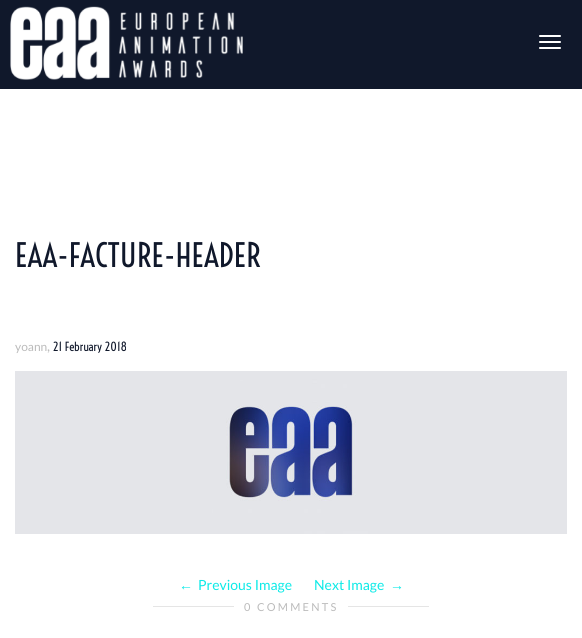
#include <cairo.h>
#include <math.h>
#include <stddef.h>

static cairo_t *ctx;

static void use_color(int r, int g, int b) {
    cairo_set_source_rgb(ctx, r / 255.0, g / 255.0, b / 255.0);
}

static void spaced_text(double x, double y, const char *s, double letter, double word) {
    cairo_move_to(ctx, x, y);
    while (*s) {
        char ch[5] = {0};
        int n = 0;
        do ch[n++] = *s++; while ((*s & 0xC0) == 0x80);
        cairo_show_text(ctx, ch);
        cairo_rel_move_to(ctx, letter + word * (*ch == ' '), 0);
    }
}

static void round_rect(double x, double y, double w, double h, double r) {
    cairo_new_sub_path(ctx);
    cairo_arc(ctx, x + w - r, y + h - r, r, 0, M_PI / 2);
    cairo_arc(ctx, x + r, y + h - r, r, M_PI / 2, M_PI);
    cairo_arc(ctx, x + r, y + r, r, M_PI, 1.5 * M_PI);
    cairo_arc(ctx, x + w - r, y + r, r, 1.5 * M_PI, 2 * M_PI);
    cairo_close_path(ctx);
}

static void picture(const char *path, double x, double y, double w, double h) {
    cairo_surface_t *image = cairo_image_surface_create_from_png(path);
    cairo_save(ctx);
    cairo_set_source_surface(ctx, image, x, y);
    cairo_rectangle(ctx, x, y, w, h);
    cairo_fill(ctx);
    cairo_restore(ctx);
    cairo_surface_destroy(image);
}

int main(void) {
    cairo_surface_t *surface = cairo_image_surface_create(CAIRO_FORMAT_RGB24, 582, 638);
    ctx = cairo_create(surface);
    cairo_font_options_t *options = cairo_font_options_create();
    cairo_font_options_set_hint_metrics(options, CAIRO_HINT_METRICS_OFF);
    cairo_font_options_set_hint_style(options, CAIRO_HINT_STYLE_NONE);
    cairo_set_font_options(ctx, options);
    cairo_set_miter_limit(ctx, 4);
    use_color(255, 255, 255);
    cairo_paint(ctx);
    use_color(16, 24, 43);
    cairo_rectangle(ctx, 0, 0, 582, 89);
    cairo_fill(ctx);
    picture("img1.png", 10, 6, 233, 74);
    use_color(255, 255, 255);
    round_rect(539, 35, 22, 2, 1);
    cairo_fill(ctx);
    round_rect(539, 41, 22, 2, 1);
    cairo_fill(ctx);
    round_rect(539, 47, 22, 2, 1);
    cairo_fill(ctx);
    cairo_select_font_face(ctx, "Voltaire", CAIRO_FONT_SLANT_NORMAL, CAIRO_FONT_WEIGHT_NORMAL);
    cairo_set_font_size(ctx, 32);
    use_color(16, 24, 43);
    cairo_move_to(ctx, 15, 267);
    cairo_show_text(ctx, "EAA-FACTURE-HEADER");
    cairo_select_font_face(ctx, "Lato", CAIRO_FONT_SLANT_NORMAL, CAIRO_FONT_WEIGHT_NORMAL);
    cairo_set_font_size(ctx, 12);
    use_color(187, 187, 187);
    cairo_move_to(ctx, 15, 351);
    cairo_show_text(ctx, "yoann");
    cairo_set_font_size(ctx, 14);
    cairo_move_to(ctx, 47, 351);
    cairo_show_text(ctx, ",");
    cairo_select_font_face(ctx, "Voltaire", CAIRO_FONT_SLANT_NORMAL, CAIRO_FONT_WEIGHT_NORMAL);
    cairo_set_font_size(ctx, 12);
    use_color(16, 24, 43);
    cairo_move_to(ctx, 53, 351);
    cairo_show_text(ctx, "21 February 2018");
    picture("img2.png", 15, 371, 552, 163);
    cairo_select_font_face(ctx, "Liberation Serif", CAIRO_FONT_SLANT_NORMAL, CAIRO_FONT_WEIGHT_NORMAL);
    cairo_set_font_size(ctx, 14);
    use_color(12, 234, 231);
    cairo_move_to(ctx, 179, 590);
    cairo_show_text(ctx, "←");
    cairo_select_font_face(ctx, "Lato", CAIRO_FONT_SLANT_NORMAL, CAIRO_FONT_WEIGHT_NORMAL);
    cairo_move_to(ctx, 198, 590);
    cairo_show_text(ctx, "Previous Image");
    cairo_move_to(ctx, 314, 590);
    cairo_show_text(ctx, "Next Image");
    cairo_select_font_face(ctx, "Liberation Serif", CAIRO_FONT_SLANT_NORMAL, CAIRO_FONT_WEIGHT_NORMAL);
    cairo_move_to(ctx, 390, 590);
    cairo_show_text(ctx, "→");
    use_color(229, 229, 229);
    cairo_rectangle(ctx, 153, 606, 276, 1);
    cairo_fill(ctx);
    use_color(255, 255, 255);
    round_rect(234, 598, 114, 17, 2);
    cairo_fill(ctx);
    cairo_select_font_face(ctx, "Lato", CAIRO_FONT_SLANT_NORMAL, CAIRO_FONT_WEIGHT_NORMAL);
    cairo_set_font_size(ctx, 11);
    use_color(187, 187, 187);
    spaced_text(244, 611, "0 COMMENTS", 2.25, 0);
    cairo_surface_write_to_png(surface, "result.png");
    cairo_font_options_destroy(options);
    cairo_destroy(ctx);
    cairo_surface_destroy(surface);
    return 0;
}
